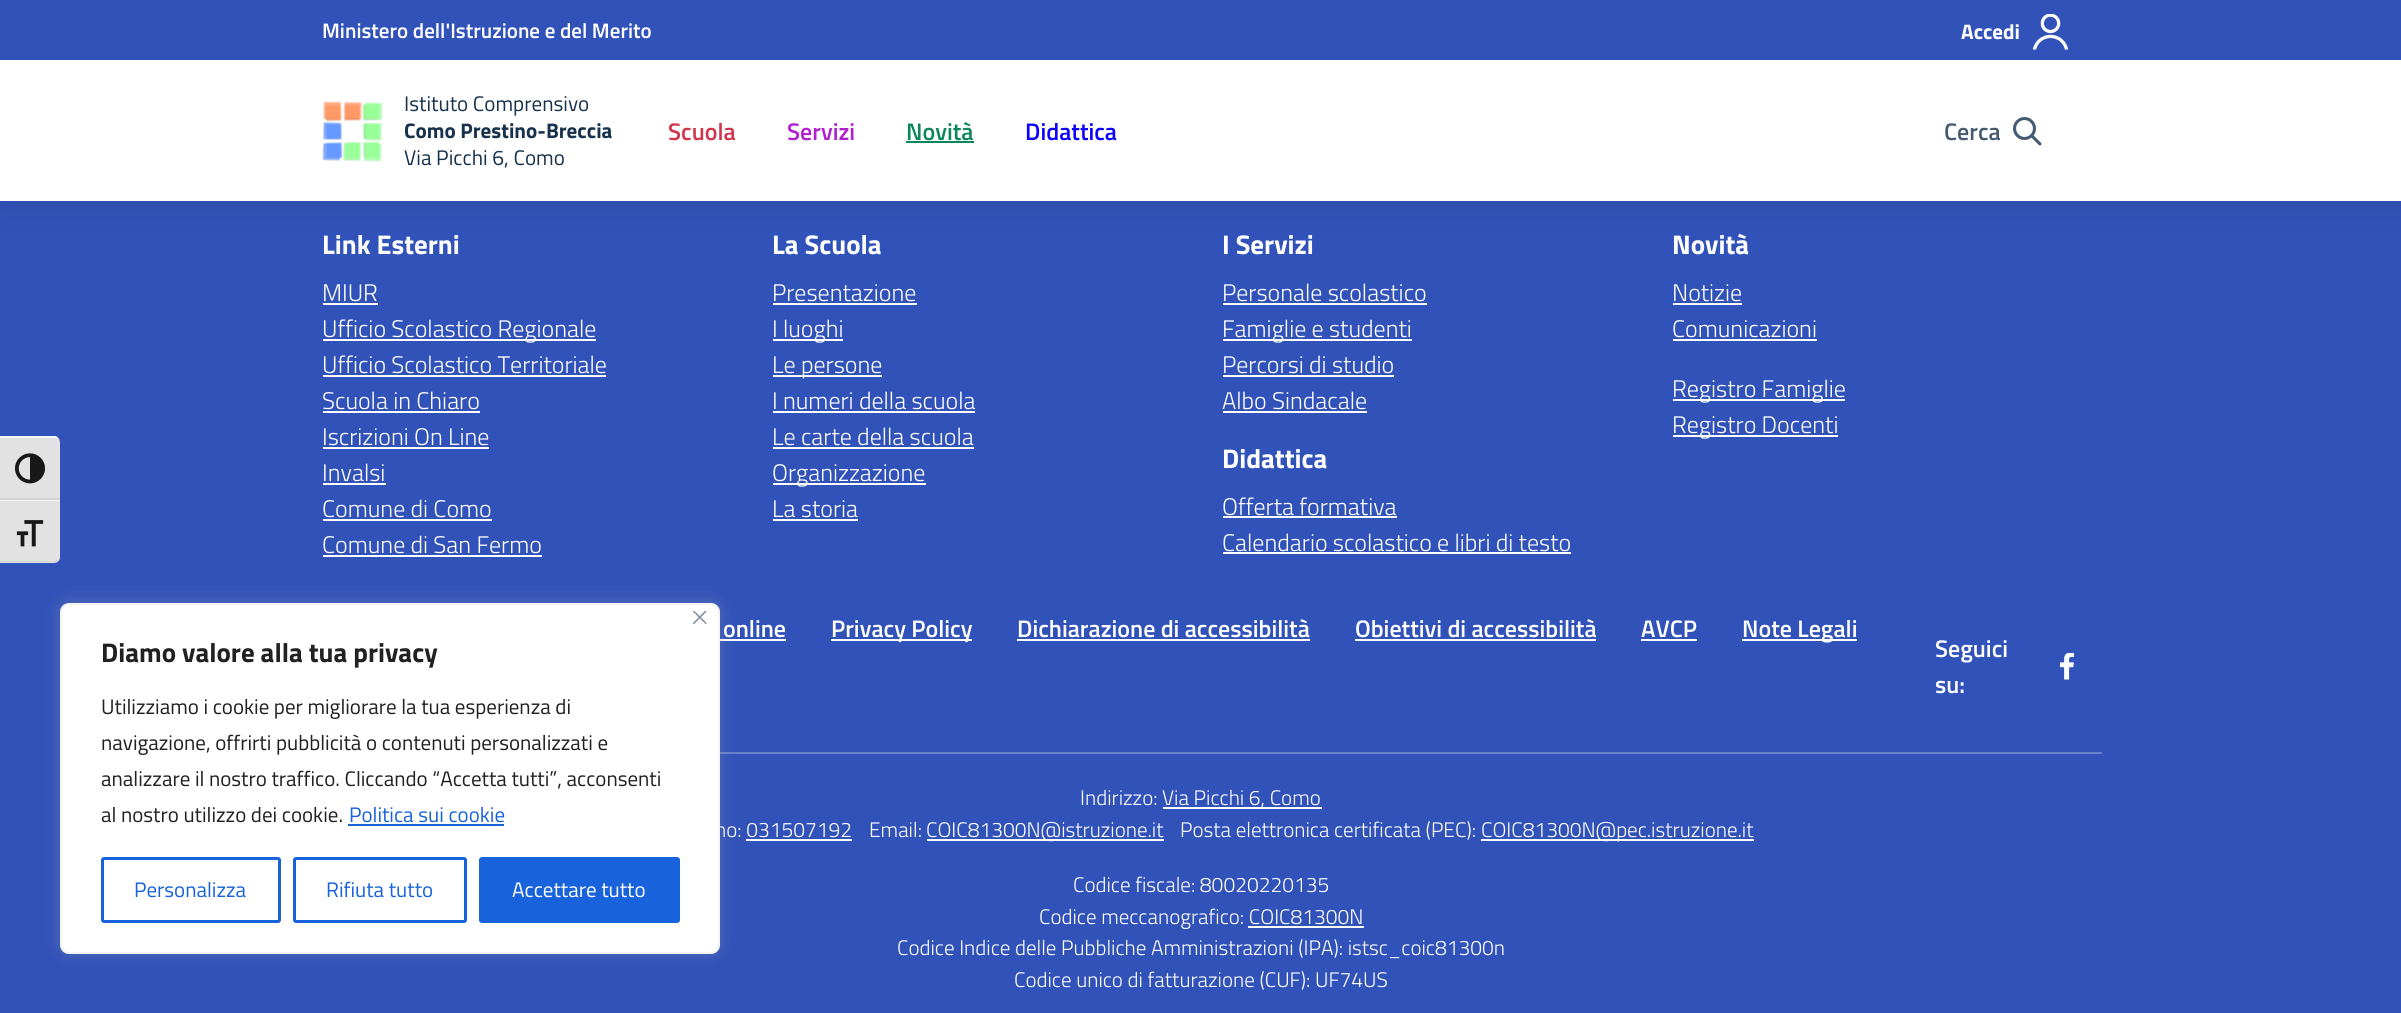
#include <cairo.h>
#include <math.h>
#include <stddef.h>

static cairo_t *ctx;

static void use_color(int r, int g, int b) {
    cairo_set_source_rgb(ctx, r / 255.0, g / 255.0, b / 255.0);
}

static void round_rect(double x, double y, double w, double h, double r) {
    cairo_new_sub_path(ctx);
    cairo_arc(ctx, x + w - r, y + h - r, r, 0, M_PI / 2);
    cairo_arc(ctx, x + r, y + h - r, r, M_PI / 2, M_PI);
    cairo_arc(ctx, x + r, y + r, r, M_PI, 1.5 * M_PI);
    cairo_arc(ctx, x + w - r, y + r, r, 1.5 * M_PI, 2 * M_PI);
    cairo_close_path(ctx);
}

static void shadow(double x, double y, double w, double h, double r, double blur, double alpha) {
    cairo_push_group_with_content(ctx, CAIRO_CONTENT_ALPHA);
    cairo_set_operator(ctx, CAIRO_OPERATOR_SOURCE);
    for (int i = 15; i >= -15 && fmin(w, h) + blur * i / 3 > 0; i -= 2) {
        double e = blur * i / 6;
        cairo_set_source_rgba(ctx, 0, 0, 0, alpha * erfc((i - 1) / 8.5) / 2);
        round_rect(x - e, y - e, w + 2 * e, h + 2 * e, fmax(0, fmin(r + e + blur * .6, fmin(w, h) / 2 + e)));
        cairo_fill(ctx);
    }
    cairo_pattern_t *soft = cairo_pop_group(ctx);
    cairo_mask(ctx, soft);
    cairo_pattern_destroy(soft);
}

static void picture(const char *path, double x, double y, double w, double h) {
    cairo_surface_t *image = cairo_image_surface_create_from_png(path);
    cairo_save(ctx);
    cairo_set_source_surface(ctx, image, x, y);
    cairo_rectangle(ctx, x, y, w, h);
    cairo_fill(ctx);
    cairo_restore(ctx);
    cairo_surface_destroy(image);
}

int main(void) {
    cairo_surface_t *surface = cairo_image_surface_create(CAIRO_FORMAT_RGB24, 2401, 1013);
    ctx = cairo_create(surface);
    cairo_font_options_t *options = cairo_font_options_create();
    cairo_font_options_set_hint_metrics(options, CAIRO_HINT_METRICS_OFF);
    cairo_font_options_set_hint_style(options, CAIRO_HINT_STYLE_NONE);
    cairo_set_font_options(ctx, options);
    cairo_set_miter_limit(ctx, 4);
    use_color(49, 82, 185);
    cairo_paint(ctx);
    use_color(0, 0, 0);
    shadow(0, 3, 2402, 201, 0, 18.5, 0.1);
    use_color(255, 255, 255);
    cairo_rectangle(ctx, 0, 60, 2401, 141);
    cairo_fill(ctx);
    use_color(49, 82, 185);
    cairo_rectangle(ctx, 0, 0, 2401, 60);
    cairo_fill(ctx);
    cairo_select_font_face(ctx, "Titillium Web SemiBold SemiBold", CAIRO_FONT_SLANT_NORMAL, CAIRO_FONT_WEIGHT_NORMAL);
    cairo_set_font_size(ctx, 21);
    use_color(255, 255, 255);
    cairo_move_to(ctx, 322, 38);
    cairo_show_text(ctx, "Ministero dell'Istruzione e del Merito");
    cairo_select_font_face(ctx, "Titillium Web", CAIRO_FONT_SLANT_NORMAL, CAIRO_FONT_WEIGHT_BOLD);
    cairo_move_to(ctx, 1961, 39);
    cairo_show_text(ctx, "Accedi");
    picture("img1.png", 2033, 14, 36, 36);
    picture("img2.png", 322, 101, 61, 61);
    cairo_select_font_face(ctx, "Titillium Web", CAIRO_FONT_SLANT_NORMAL, CAIRO_FONT_WEIGHT_NORMAL);
    cairo_set_font_size(ctx, 21.1);
    use_color(23, 50, 77);
    cairo_move_to(ctx, 404, 111);
    cairo_show_text(ctx, "Istituto Comprensivo");
    cairo_select_font_face(ctx, "Titillium Web", CAIRO_FONT_SLANT_NORMAL, CAIRO_FONT_WEIGHT_BOLD);
    cairo_move_to(ctx, 404, 138);
    cairo_show_text(ctx, "Como Prestino-Breccia");
    cairo_select_font_face(ctx, "Titillium Web", CAIRO_FONT_SLANT_NORMAL, CAIRO_FONT_WEIGHT_NORMAL);
    cairo_move_to(ctx, 404, 165);
    cairo_show_text(ctx, "Via Picchi 6, Como");
    cairo_select_font_face(ctx, "Titillium Web SemiBold SemiBold", CAIRO_FONT_SLANT_NORMAL, CAIRO_FONT_WEIGHT_NORMAL);
    cairo_set_font_size(ctx, 24);
    use_color(209, 52, 76);
    cairo_move_to(ctx, 668, 140);
    cairo_show_text(ctx, "Scuola");
    use_color(178, 29, 208);
    cairo_move_to(ctx, 787, 140);
    cairo_show_text(ctx, "Servizi");
    use_color(14, 134, 92);
    cairo_move_to(ctx, 906, 140);
    cairo_show_text(ctx, "Novità");
    cairo_rectangle(ctx, 906, 141, 68, 2);
    cairo_fill(ctx);
    use_color(13, 0, 255);
    cairo_move_to(ctx, 1025, 140);
    cairo_show_text(ctx, "Didattica");
    use_color(69, 91, 113);
    cairo_move_to(ctx, 1944, 140);
    cairo_show_text(ctx, "Cerca");
    picture("img3.png", 2013, 117, 29, 29);
    use_color(226, 226, 226);
    cairo_new_path(ctx);
    cairo_move_to(ctx, 0, 437);
    cairo_line_to(ctx, 54, 437);
    cairo_curve_to(ctx, 57.5, 437, 60, 439.5, 60, 443);
    cairo_line_to(ctx, 60, 500);
    cairo_line_to(ctx, 0, 500);
    cairo_close_path(ctx);
    cairo_fill(ctx);
    use_color(245, 245, 245);
    cairo_new_path(ctx);
    cairo_move_to(ctx, 0, 438);
    cairo_line_to(ctx, 54, 438);
    cairo_curve_to(ctx, 57, 438, 60, 440, 60, 442);
    cairo_curve_to(ctx, 60, 440, 58, 437, 56, 436);
    cairo_line_to(ctx, 0, 436);
    cairo_close_path(ctx);
    cairo_fill(ctx);
    use_color(210, 210, 210);
    cairo_rectangle(ctx, 0, 498, 60, 2);
    cairo_fill(ctx);
    picture("img4.png", 15, 453, 30, 31);
    use_color(226, 226, 226);
    cairo_new_path(ctx);
    cairo_move_to(ctx, 0, 500);
    cairo_line_to(ctx, 60, 500);
    cairo_line_to(ctx, 60, 557);
    cairo_curve_to(ctx, 60, 560.5, 57.5, 563, 54, 563);
    cairo_line_to(ctx, 0, 563);
    cairo_close_path(ctx);
    cairo_fill(ctx);
    use_color(245, 245, 245);
    cairo_rectangle(ctx, 0, 500, 60, 1);
    cairo_fill(ctx);
    use_color(210, 210, 210);
    cairo_new_path(ctx);
    cairo_move_to(ctx, 0, 561);
    cairo_line_to(ctx, 0, 562);
    cairo_line_to(ctx, 54, 562);
    cairo_curve_to(ctx, 57, 562, 60, 560, 60, 556);
    cairo_curve_to(ctx, 60, 559, 57, 561, 54, 561);
    cairo_close_path(ctx);
    cairo_fill(ctx);
    picture("img5.png", 16, 520, 28, 27);
    cairo_select_font_face(ctx, "Titillium Web", CAIRO_FONT_SLANT_NORMAL, CAIRO_FONT_WEIGHT_BOLD);
    cairo_set_font_size(ctx, 27);
    use_color(255, 255, 255);
    cairo_move_to(ctx, 322, 254);
    cairo_show_text(ctx, "Link Esterni");
    cairo_select_font_face(ctx, "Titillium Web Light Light", CAIRO_FONT_SLANT_NORMAL, CAIRO_FONT_WEIGHT_NORMAL);
    cairo_set_font_size(ctx, 24);
    cairo_move_to(ctx, 322, 301);
    cairo_show_text(ctx, "MIUR");
    cairo_rectangle(ctx, 323, 303, 55, 2);
    cairo_fill(ctx);
    cairo_rectangle(ctx, 323, 339, 273, 2);
    cairo_fill(ctx);
    cairo_move_to(ctx, 322, 337);
    cairo_show_text(ctx, "Ufficio Scolastico Regionale");
    cairo_move_to(ctx, 322, 373);
    cairo_show_text(ctx, "Ufficio Scolastico Territoriale");
    cairo_rectangle(ctx, 323, 375, 283, 2);
    cairo_fill(ctx);
    cairo_move_to(ctx, 322, 409);
    cairo_show_text(ctx, "Scuola in Chiaro");
    cairo_rectangle(ctx, 323, 411, 157, 2);
    cairo_fill(ctx);
    cairo_move_to(ctx, 322, 445);
    cairo_show_text(ctx, "Iscrizioni On Line");
    cairo_rectangle(ctx, 323, 447, 166, 2);
    cairo_fill(ctx);
    cairo_move_to(ctx, 322, 481);
    cairo_show_text(ctx, "Invalsi");
    cairo_rectangle(ctx, 323, 483, 63, 2);
    cairo_fill(ctx);
    cairo_move_to(ctx, 322, 517);
    cairo_show_text(ctx, "Comune di Como");
    cairo_rectangle(ctx, 323, 519, 169, 2);
    cairo_fill(ctx);
    cairo_move_to(ctx, 322, 553);
    cairo_show_text(ctx, "Comune di San Fermo");
    cairo_rectangle(ctx, 323, 555, 219, 2);
    cairo_fill(ctx);
    cairo_select_font_face(ctx, "Titillium Web", CAIRO_FONT_SLANT_NORMAL, CAIRO_FONT_WEIGHT_BOLD);
    cairo_set_font_size(ctx, 27);
    cairo_move_to(ctx, 772, 254);
    cairo_show_text(ctx, "La Scuola");
    cairo_select_font_face(ctx, "Titillium Web Light Light", CAIRO_FONT_SLANT_NORMAL, CAIRO_FONT_WEIGHT_NORMAL);
    cairo_set_font_size(ctx, 24);
    cairo_move_to(ctx, 772, 301);
    cairo_show_text(ctx, "Presentazione");
    cairo_rectangle(ctx, 773, 303, 144, 2);
    cairo_fill(ctx);
    cairo_rectangle(ctx, 773, 339, 70, 2);
    cairo_fill(ctx);
    cairo_move_to(ctx, 772, 337);
    cairo_show_text(ctx, "I luoghi");
    cairo_rectangle(ctx, 773, 375, 109, 2);
    cairo_fill(ctx);
    cairo_move_to(ctx, 772, 373);
    cairo_show_text(ctx, "Le persone");
    cairo_move_to(ctx, 772, 409);
    cairo_show_text(ctx, "I numeri della scuola");
    cairo_rectangle(ctx, 773, 411, 202, 2);
    cairo_fill(ctx);
    cairo_move_to(ctx, 772, 445);
    cairo_show_text(ctx, "Le carte della scuola");
    cairo_rectangle(ctx, 773, 447, 201, 2);
    cairo_fill(ctx);
    cairo_rectangle(ctx, 773, 483, 153, 2);
    cairo_fill(ctx);
    cairo_move_to(ctx, 772, 481);
    cairo_show_text(ctx, "Organizzazione");
    cairo_move_to(ctx, 772, 517);
    cairo_show_text(ctx, "La storia");
    cairo_rectangle(ctx, 773, 519, 85, 2);
    cairo_fill(ctx);
    cairo_select_font_face(ctx, "Titillium Web", CAIRO_FONT_SLANT_NORMAL, CAIRO_FONT_WEIGHT_BOLD);
    cairo_set_font_size(ctx, 27);
    cairo_move_to(ctx, 1222, 254);
    cairo_show_text(ctx, "I Servizi");
    cairo_select_font_face(ctx, "Titillium Web Light Light", CAIRO_FONT_SLANT_NORMAL, CAIRO_FONT_WEIGHT_NORMAL);
    cairo_set_font_size(ctx, 24);
    cairo_move_to(ctx, 1222, 301);
    cairo_show_text(ctx, "Personale scolastico");
    cairo_rectangle(ctx, 1223, 303, 204, 2);
    cairo_fill(ctx);
    cairo_rectangle(ctx, 1223, 339, 189, 2);
    cairo_fill(ctx);
    cairo_move_to(ctx, 1222, 337);
    cairo_show_text(ctx, "Famiglie e studenti");
    cairo_move_to(ctx, 1222, 373);
    cairo_show_text(ctx, "Percorsi di studio");
    cairo_rectangle(ctx, 1223, 375, 171, 2);
    cairo_fill(ctx);
    cairo_move_to(ctx, 1222, 409);
    cairo_show_text(ctx, "Albo Sindacale");
    cairo_rectangle(ctx, 1223, 411, 144, 2);
    cairo_fill(ctx);
    cairo_select_font_face(ctx, "Titillium Web", CAIRO_FONT_SLANT_NORMAL, CAIRO_FONT_WEIGHT_BOLD);
    cairo_set_font_size(ctx, 27);
    cairo_move_to(ctx, 1222, 468);
    cairo_show_text(ctx, "Didattica");
    cairo_select_font_face(ctx, "Titillium Web Light Light", CAIRO_FONT_SLANT_NORMAL, CAIRO_FONT_WEIGHT_NORMAL);
    cairo_set_font_size(ctx, 24);
    cairo_move_to(ctx, 1222, 515);
    cairo_show_text(ctx, "Offerta formativa");
    cairo_rectangle(ctx, 1223, 516, 174, 2);
    cairo_fill(ctx);
    cairo_move_to(ctx, 1222, 551);
    cairo_show_text(ctx, "Calendario scolastico e libri di testo");
    cairo_rectangle(ctx, 1223, 552, 348, 2);
    cairo_fill(ctx);
    cairo_select_font_face(ctx, "Titillium Web", CAIRO_FONT_SLANT_NORMAL, CAIRO_FONT_WEIGHT_BOLD);
    cairo_set_font_size(ctx, 27);
    cairo_move_to(ctx, 1672, 254);
    cairo_show_text(ctx, "Novità");
    cairo_select_font_face(ctx, "Titillium Web Light Light", CAIRO_FONT_SLANT_NORMAL, CAIRO_FONT_WEIGHT_NORMAL);
    cairo_set_font_size(ctx, 24);
    cairo_move_to(ctx, 1672, 301);
    cairo_show_text(ctx, "Notizie");
    cairo_rectangle(ctx, 1673, 303, 69, 2);
    cairo_fill(ctx);
    cairo_move_to(ctx, 1672, 337);
    cairo_show_text(ctx, "Comunicazioni");
    cairo_rectangle(ctx, 1673, 339, 144, 2);
    cairo_fill(ctx);
    cairo_rectangle(ctx, 1673, 399, 172, 2);
    cairo_fill(ctx);
    cairo_move_to(ctx, 1672, 397);
    cairo_show_text(ctx, "Registro Famiglie");
    cairo_rectangle(ctx, 1673, 435, 165, 2);
    cairo_fill(ctx);
    cairo_move_to(ctx, 1672, 433);
    cairo_show_text(ctx, "Registro Docenti");
    cairo_select_font_face(ctx, "Titillium Web SemiBold SemiBold", CAIRO_FONT_SLANT_NORMAL, CAIRO_FONT_WEIGHT_NORMAL);
    cairo_move_to(ctx, 723, 637);
    cairo_show_text(ctx, "online");
    cairo_rectangle(ctx, 720, 639, 66, 2);
    cairo_fill(ctx);
    cairo_rectangle(ctx, 831, 639, 141, 2);
    cairo_fill(ctx);
    cairo_move_to(ctx, 831, 637);
    cairo_show_text(ctx, "Privacy Policy");
    cairo_move_to(ctx, 1017, 637);
    cairo_show_text(ctx, "Dichiarazione di accessibilità");
    cairo_rectangle(ctx, 1017, 639, 293, 2);
    cairo_fill(ctx);
    cairo_move_to(ctx, 1355, 637);
    cairo_show_text(ctx, "Obiettivi di accessibilità");
    cairo_rectangle(ctx, 1355, 639, 241, 2);
    cairo_fill(ctx);
    cairo_move_to(ctx, 1641, 637);
    cairo_show_text(ctx, "AVCP");
    cairo_rectangle(ctx, 1641, 639, 56, 2);
    cairo_fill(ctx);
    cairo_rectangle(ctx, 1742, 639, 115, 2);
    cairo_fill(ctx);
    cairo_move_to(ctx, 1742, 637);
    cairo_show_text(ctx, "Note Legali");
    cairo_move_to(ctx, 1935, 657);
    cairo_show_text(ctx, "Seguici");
    cairo_move_to(ctx, 1935, 693);
    cairo_show_text(ctx, "su:");
    picture("img6.png", 2060, 653, 14, 27);
    use_color(105, 129, 204);
    cairo_rectangle(ctx, 720, 752, 1382, 2);
    cairo_fill(ctx);
    cairo_select_font_face(ctx, "Titillium Web Light Light", CAIRO_FONT_SLANT_NORMAL, CAIRO_FONT_WEIGHT_NORMAL);
    cairo_set_font_size(ctx, 21);
    use_color(255, 255, 255);
    cairo_move_to(ctx, 1080, 805);
    cairo_show_text(ctx, "Indirizzo:");
    cairo_rectangle(ctx, 1163, 807, 159, 2);
    cairo_fill(ctx);
    cairo_move_to(ctx, 1162, 805);
    cairo_show_text(ctx, "Via Picchi 6, Como");
    cairo_move_to(ctx, 715, 837);
    cairo_show_text(ctx, "no: 031507192");
    cairo_rectangle(ctx, 746, 839, 106, 2);
    cairo_fill(ctx);
    cairo_move_to(ctx, 869, 837);
    cairo_show_text(ctx, "Email:");
    cairo_rectangle(ctx, 927, 839, 237, 2);
    cairo_fill(ctx);
    cairo_move_to(ctx, 926, 837);
    cairo_show_text(ctx, "COIC81300N@istruzione.it");
    cairo_move_to(ctx, 1180, 837);
    cairo_show_text(ctx, "Posta elettronica certificata (PEC):");
    cairo_rectangle(ctx, 1481, 839, 273, 2);
    cairo_fill(ctx);
    cairo_move_to(ctx, 1481, 837);
    cairo_show_text(ctx, "COIC81300N@pec.istruzione.it");
    cairo_move_to(ctx, 1073, 892);
    cairo_show_text(ctx, "Codice fiscale: 80020220135");
    cairo_move_to(ctx, 1039, 924);
    cairo_show_text(ctx, "Codice meccanografico: COIC81300N");
    cairo_rectangle(ctx, 1248, 926, 116, 2);
    cairo_fill(ctx);
    cairo_move_to(ctx, 897, 955);
    cairo_show_text(ctx, "Codice Indice delle Pubbliche Amministrazioni (IPA): istsc_coic81300n");
    cairo_move_to(ctx, 1014, 987);
    cairo_show_text(ctx, "Codice unico di fatturazione (CUF): UF74US");
    use_color(172, 171, 171);
    shadow(60, 602, 660, 351, 9, 7.5, 0.3);
    use_color(255, 255, 255);
    round_rect(61, 604, 658, 349, 8);
    cairo_fill_preserve(ctx);
    use_color(244, 244, 244);
    cairo_stroke(ctx);
    picture("img7.png", 693, 611, 14, 13);
    cairo_select_font_face(ctx, "Titillium Web", CAIRO_FONT_SLANT_NORMAL, CAIRO_FONT_WEIGHT_BOLD);
    cairo_set_font_size(ctx, 27);
    use_color(33, 33, 33);
    cairo_move_to(ctx, 101, 662);
    cairo_show_text(ctx, "Diamo valore alla tua privacy");
    cairo_select_font_face(ctx, "Titillium Web", CAIRO_FONT_SLANT_NORMAL, CAIRO_FONT_WEIGHT_NORMAL);
    cairo_set_font_size(ctx, 21);
    cairo_move_to(ctx, 101, 714);
    cairo_show_text(ctx, "Utilizziamo i cookie per migliorare la tua esperienza di");
    cairo_move_to(ctx, 101, 750);
    cairo_show_text(ctx, "navigazione, offrirti pubblicità o contenuti personalizzati e");
    cairo_move_to(ctx, 101, 786);
    cairo_show_text(ctx, "analizzare il nostro traffico. Cliccando “Accetta tutti”, acconsenti");
    cairo_move_to(ctx, 101, 822);
    cairo_show_text(ctx, "al nostro utilizzo dei cookie.");
    use_color(24, 99, 220);
    cairo_move_to(ctx, 349, 822);
    cairo_show_text(ctx, "Politica sui cookie");
    cairo_rectangle(ctx, 348, 824, 156, 2);
    cairo_fill(ctx);
    round_rect(102.5, 858.5, 177, 63, 1.5);
    cairo_set_line_width(ctx, 3);
    cairo_stroke(ctx);
    cairo_move_to(ctx, 134, 897);
    cairo_show_text(ctx, "Personalizza");
    round_rect(294.5, 858.5, 171, 63, 1.5);
    cairo_stroke(ctx);
    cairo_move_to(ctx, 326, 897);
    cairo_show_text(ctx, "Rifiuta tutto");
    round_rect(480.5, 858.5, 198, 63, 1.5);
    cairo_fill_preserve(ctx);
    cairo_stroke(ctx);
    use_color(255, 255, 255);
    cairo_move_to(ctx, 512, 897);
    cairo_show_text(ctx, "Accettare tutto");
    cairo_surface_write_to_png(surface, "result.png");
    cairo_font_options_destroy(options);
    cairo_destroy(ctx);
    cairo_surface_destroy(surface);
    return 0;
}
